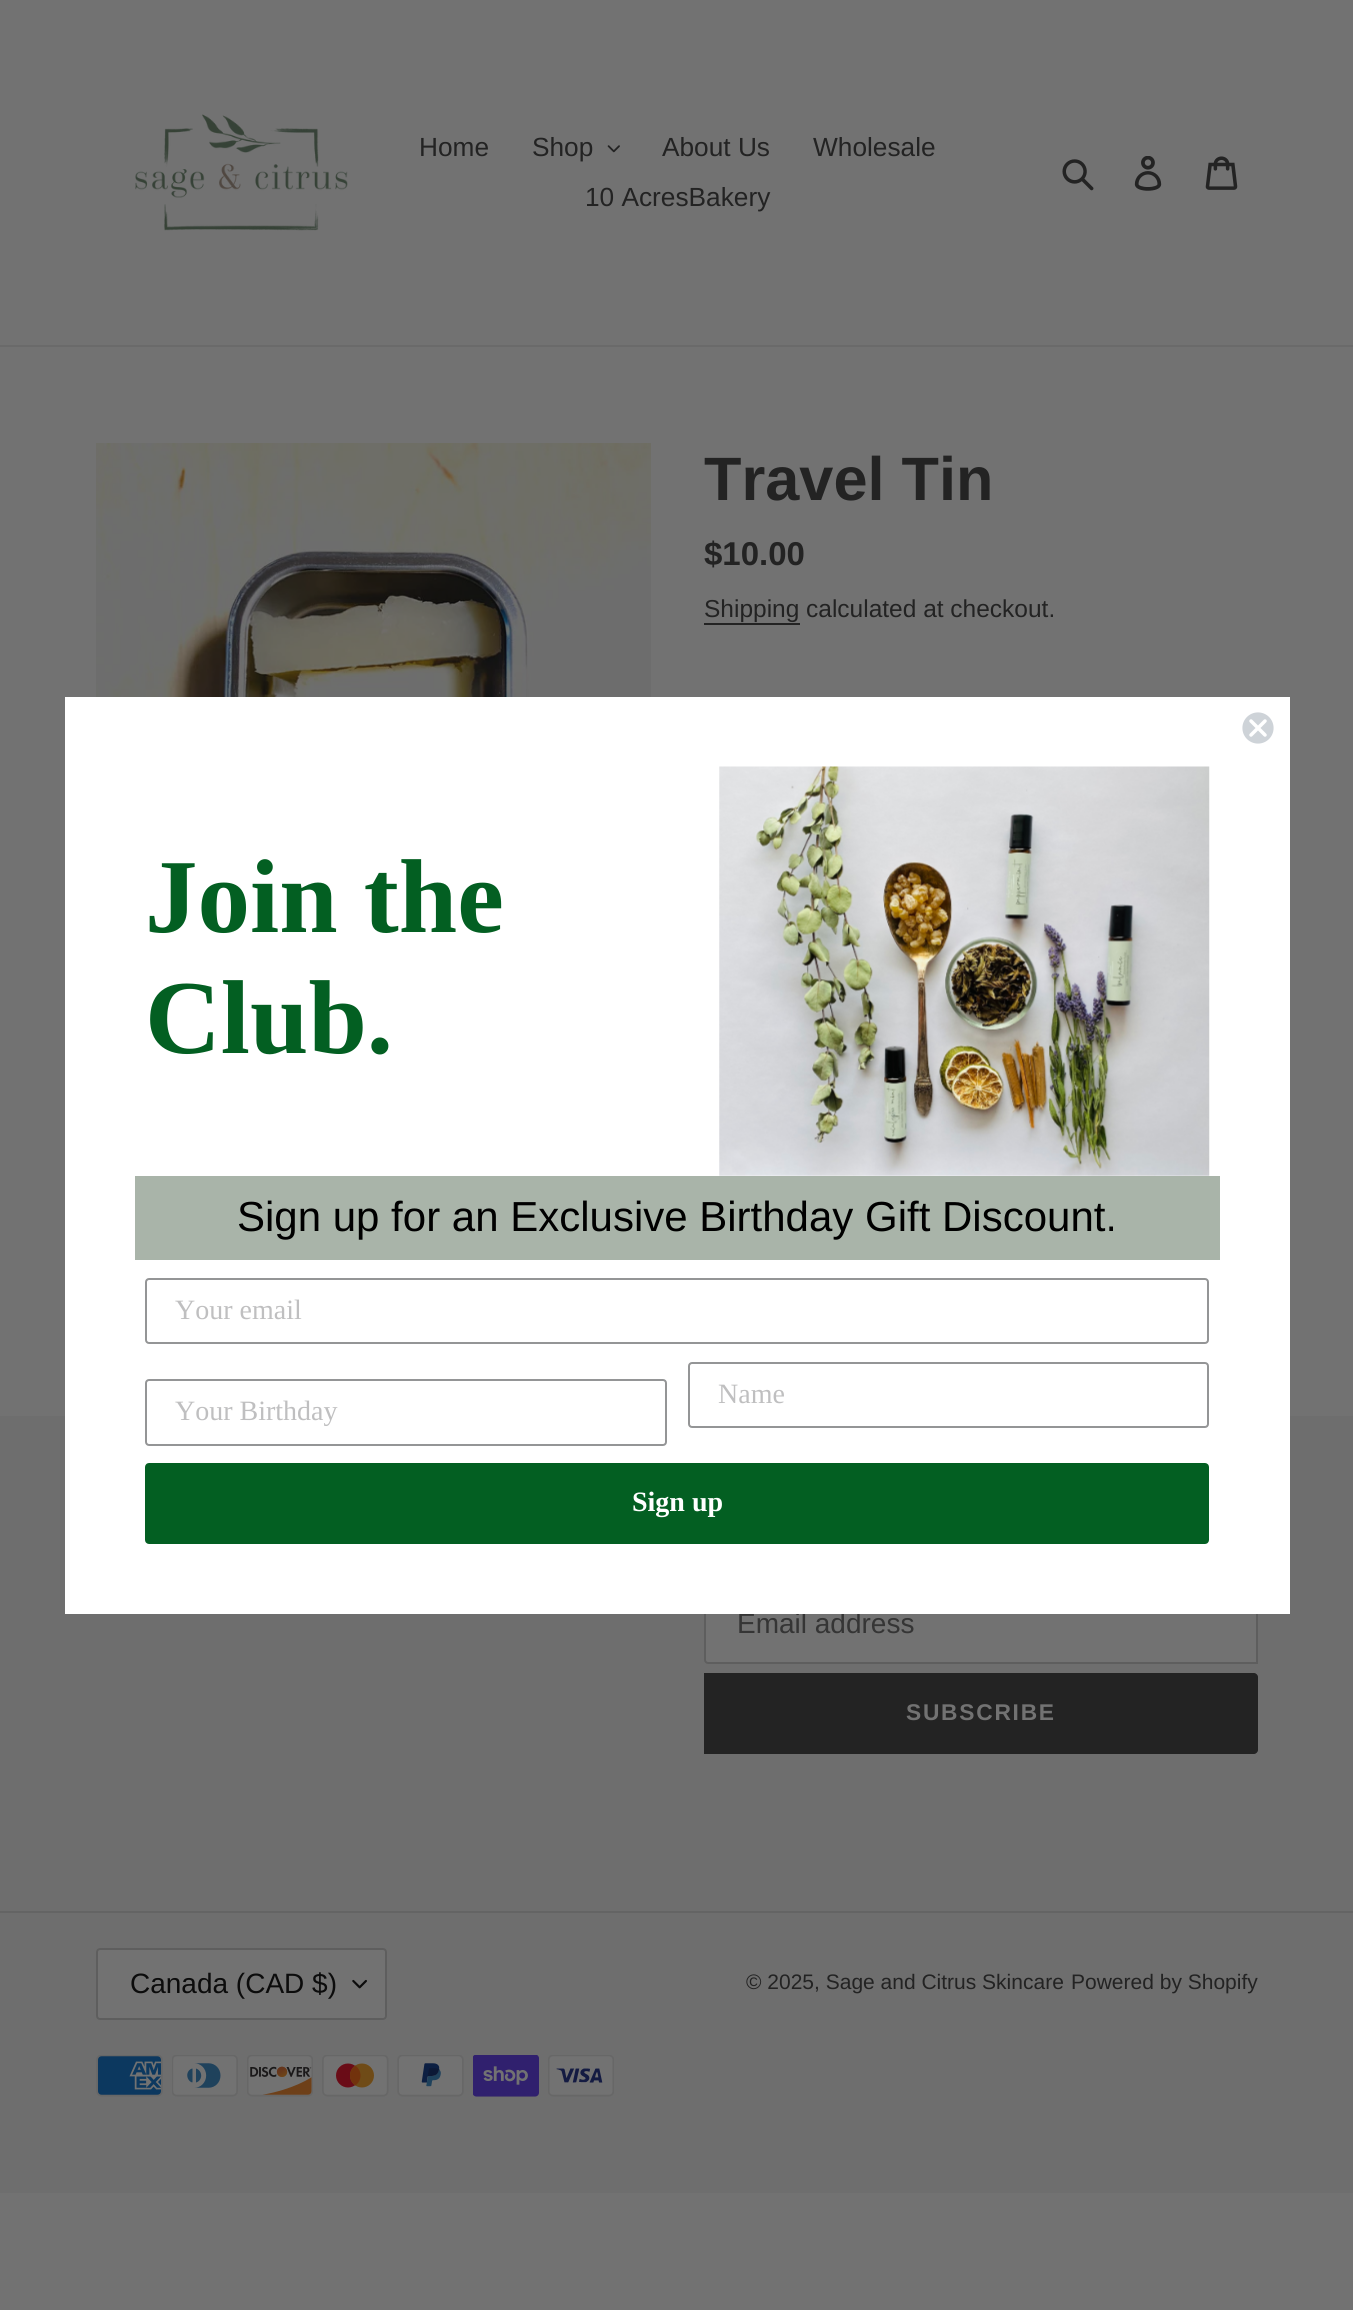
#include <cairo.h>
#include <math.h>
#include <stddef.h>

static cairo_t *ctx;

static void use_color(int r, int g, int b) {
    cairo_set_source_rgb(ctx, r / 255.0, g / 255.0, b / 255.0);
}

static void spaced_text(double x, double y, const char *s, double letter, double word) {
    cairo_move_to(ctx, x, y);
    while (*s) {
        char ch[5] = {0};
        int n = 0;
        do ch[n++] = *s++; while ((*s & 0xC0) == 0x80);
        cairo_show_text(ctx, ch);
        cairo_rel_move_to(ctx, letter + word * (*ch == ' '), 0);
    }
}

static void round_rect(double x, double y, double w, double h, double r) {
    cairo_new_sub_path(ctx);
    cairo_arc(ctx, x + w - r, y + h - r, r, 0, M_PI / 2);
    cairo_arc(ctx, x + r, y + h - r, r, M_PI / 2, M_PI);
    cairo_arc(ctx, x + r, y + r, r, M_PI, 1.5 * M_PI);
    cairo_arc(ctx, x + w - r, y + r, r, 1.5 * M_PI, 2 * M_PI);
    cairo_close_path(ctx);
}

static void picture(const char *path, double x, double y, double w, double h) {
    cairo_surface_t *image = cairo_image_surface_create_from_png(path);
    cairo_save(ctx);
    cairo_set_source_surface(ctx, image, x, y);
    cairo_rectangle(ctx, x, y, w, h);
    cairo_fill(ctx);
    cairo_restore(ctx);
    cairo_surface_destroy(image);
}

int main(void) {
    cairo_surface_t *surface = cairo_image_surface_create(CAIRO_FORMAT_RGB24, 1353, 2310);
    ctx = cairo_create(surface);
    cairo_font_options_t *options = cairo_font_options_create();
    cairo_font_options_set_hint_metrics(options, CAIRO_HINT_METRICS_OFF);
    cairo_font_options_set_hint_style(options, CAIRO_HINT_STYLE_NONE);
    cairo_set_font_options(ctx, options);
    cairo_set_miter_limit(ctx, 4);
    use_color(114, 114, 114);
    cairo_paint(ctx);
    use_color(106, 106, 106);
    cairo_rectangle(ctx, 0, 345, 1353, 2);
    cairo_fill(ctx);
    picture("img1.png", 135, 114, 213, 117);
    cairo_select_font_face(ctx, "Liberation Sans", CAIRO_FONT_SLANT_NORMAL, CAIRO_FONT_WEIGHT_NORMAL);
    cairo_set_font_size(ctx, 26.25);
    use_color(35, 35, 35);
    cairo_move_to(ctx, 419, 156);
    cairo_show_text(ctx, "Home");
    cairo_move_to(ctx, 532, 156);
    cairo_show_text(ctx, "Shop");
    picture("img2.png", 607, 145, 13, 8);
    cairo_move_to(ctx, 662, 156);
    cairo_show_text(ctx, "About Us");
    cairo_move_to(ctx, 813, 156);
    cairo_show_text(ctx, "Wholesale");
    cairo_move_to(ctx, 585, 206);
    cairo_show_text(ctx, "10 AcresBakery");
    picture("img3.png", 1062, 159, 32, 32);
    picture("img4.png", 1134, 156, 28, 35);
    picture("img5.png", 1205, 156, 33, 34);
    picture("img6.png", 96, 443, 555, 254);
    cairo_select_font_face(ctx, "Liberation Sans", CAIRO_FONT_SLANT_NORMAL, CAIRO_FONT_WEIGHT_BOLD);
    cairo_set_font_size(ctx, 61.25);
    cairo_move_to(ctx, 704, 500);
    cairo_show_text(ctx, "Travel Tin");
    cairo_set_font_size(ctx, 33);
    cairo_move_to(ctx, 704, 565);
    cairo_show_text(ctx, "$10.00");
    cairo_select_font_face(ctx, "Liberation Sans", CAIRO_FONT_SLANT_NORMAL, CAIRO_FONT_WEIGHT_NORMAL);
    cairo_set_font_size(ctx, 24.5);
    cairo_move_to(ctx, 704, 617);
    cairo_show_text(ctx, "Shipping");
    cairo_rectangle(ctx, 704, 623, 96, 2);
    cairo_fill(ctx);
    cairo_move_to(ctx, 806, 617);
    cairo_show_text(ctx, "calculated at checkout.");
    use_color(110, 110, 110);
    cairo_rectangle(ctx, 0, 1416, 1353, 777);
    cairo_fill(ctx);
    use_color(114, 114, 114);
    cairo_new_path(ctx);
    cairo_move_to(ctx, 708, 1585);
    cairo_line_to(ctx, 1257, 1585);
    cairo_line_to(ctx, 1257, 1663);
    cairo_line_to(ctx, 708, 1663);
    cairo_curve_to(ctx, 706.5, 1663, 705, 1661.5, 705, 1660);
    cairo_line_to(ctx, 705, 1588);
    cairo_curve_to(ctx, 705, 1586.5, 706.5, 1585, 708, 1585);
    cairo_close_path(ctx);
    cairo_fill_preserve(ctx);
    use_color(94, 94, 94);
    cairo_stroke(ctx);
    cairo_set_font_size(ctx, 28);
    use_color(53, 53, 53);
    cairo_move_to(ctx, 737, 1633);
    cairo_show_text(ctx, "Email address");
    use_color(35, 35, 35);
    cairo_new_path(ctx);
    cairo_move_to(ctx, 704, 1673);
    cairo_line_to(ctx, 1254, 1673);
    cairo_curve_to(ctx, 1256, 1673, 1258, 1675, 1258, 1677);
    cairo_line_to(ctx, 1258, 1750);
    cairo_curve_to(ctx, 1258, 1752, 1256, 1754, 1254, 1754);
    cairo_line_to(ctx, 704, 1754);
    cairo_close_path(ctx);
    cairo_fill(ctx);
    cairo_select_font_face(ctx, "Liberation Sans", CAIRO_FONT_SLANT_NORMAL, CAIRO_FONT_WEIGHT_BOLD);
    cairo_set_font_size(ctx, 22.75);
    use_color(114, 114, 114);
    spaced_text(906, 1720, "SUBSCRIBE", 1.75, 0);
    use_color(100, 100, 100);
    cairo_rectangle(ctx, 0, 1911, 1353, 2);
    cairo_fill(ctx);
    use_color(114, 114, 114);
    round_rect(96, 1948, 291, 72, 4);
    cairo_fill(ctx);
    picture("img7.png", 352, 1979, 15, 10);
    round_rect(97, 1949, 289, 70, 3);
    use_color(94, 94, 94);
    cairo_stroke(ctx);
    cairo_select_font_face(ctx, "Liberation Sans", CAIRO_FONT_SLANT_NORMAL, CAIRO_FONT_WEIGHT_NORMAL);
    cairo_set_font_size(ctx, 28);
    use_color(12, 12, 12);
    cairo_move_to(ctx, 130, 1993);
    cairo_show_text(ctx, "Canada (CAD $)");
    cairo_set_font_size(ctx, 21);
    use_color(35, 35, 35);
    cairo_move_to(ctx, 746, 1989);
    cairo_show_text(ctx, "© 2025, Sage and Citrus Skincare");
    cairo_move_to(ctx, 1071, 1989);
    cairo_show_text(ctx, "Powered by Shopify");
    picture("img8.png", 96, 2055, 67, 42);
    picture("img9.png", 172, 2055, 66, 42);
    picture("img10.png", 247, 2055, 66, 42);
    picture("img11.png", 322, 2055, 67, 42);
    picture("img12.png", 397, 2055, 67, 42);
    picture("img13.png", 473, 2055, 66, 42);
    picture("img14.png", 548, 2055, 66, 42);
    use_color(255, 255, 255);
    cairo_rectangle(ctx, 65, 697, 1225, 917);
    cairo_fill(ctx);
    use_color(206, 211, 216);
    cairo_arc(ctx, 1258, 728, 16.5, 0, 2 * M_PI);
    cairo_fill(ctx);
    cairo_save(ctx);
    cairo_rectangle(ctx, 1241, 711, 35, 35);
    cairo_clip(ctx);
    cairo_arc(ctx, 1258, 728, 16.5, 0, 2 * M_PI);
    use_color(255, 255, 255);
    cairo_set_line_width(ctx, 1.8);
    cairo_stroke(ctx);
    cairo_restore(ctx);
    cairo_new_path(ctx);
    cairo_move_to(ctx, 1251, 721);
    cairo_line_to(ctx, 1265, 735);
    cairo_move_to(ctx, 1251, 735);
    cairo_line_to(ctx, 1265, 721);
    cairo_close_path(ctx);
    use_color(255, 255, 255);
    cairo_set_line_width(ctx, 3.5);
    cairo_set_line_cap(ctx, CAIRO_LINE_CAP_ROUND);
    cairo_set_line_join(ctx, CAIRO_LINE_JOIN_ROUND);
    cairo_stroke(ctx);
    cairo_select_font_face(ctx, "Liberation Serif", CAIRO_FONT_SLANT_NORMAL, CAIRO_FONT_WEIGHT_BOLD);
    cairo_set_font_size(ctx, 105);
    use_color(3, 95, 34);
    cairo_move_to(ctx, 145, 932);
    cairo_show_text(ctx, "Join the");
    cairo_move_to(ctx, 145, 1053);
    cairo_show_text(ctx, "Club.");
    picture("img15.png", 719, 766, 491, 410);
    use_color(169, 180, 169);
    cairo_rectangle(ctx, 135, 1176, 1085, 84);
    cairo_fill(ctx);
    cairo_select_font_face(ctx, "Liberation Sans", CAIRO_FONT_SLANT_NORMAL, CAIRO_FONT_WEIGHT_NORMAL);
    cairo_set_font_size(ctx, 42);
    use_color(0, 0, 0);
    cairo_move_to(ctx, 237, 1231);
    cairo_show_text(ctx, "Sign up for an Exclusive Birthday Gift Discount.");
    round_rect(146, 1279, 1062, 64, 3);
    use_color(148, 149, 150);
    cairo_set_line_width(ctx, 2);
    cairo_set_line_cap(ctx, CAIRO_LINE_CAP_BUTT);
    cairo_set_line_join(ctx, CAIRO_LINE_JOIN_MITER);
    cairo_stroke(ctx);
    cairo_select_font_face(ctx, "Liberation Serif", CAIRO_FONT_SLANT_NORMAL, CAIRO_FONT_WEIGHT_NORMAL);
    cairo_set_font_size(ctx, 28);
    use_color(191, 191, 192);
    cairo_move_to(ctx, 175, 1319);
    cairo_show_text(ctx, "Your email");
    round_rect(689, 1363, 519, 64, 3);
    use_color(148, 149, 150);
    cairo_stroke(ctx);
    use_color(191, 191, 192);
    cairo_move_to(ctx, 718, 1403);
    cairo_show_text(ctx, "Name");
    round_rect(146, 1380, 520, 65, 3);
    use_color(148, 149, 150);
    cairo_stroke(ctx);
    use_color(191, 191, 192);
    cairo_move_to(ctx, 175, 1420);
    cairo_show_text(ctx, "Your Birthday");
    use_color(3, 95, 34);
    round_rect(148.5, 1466.5, 1057, 74, 0.5);
    cairo_fill_preserve(ctx);
    cairo_set_line_width(ctx, 7);
    cairo_stroke(ctx);
    cairo_select_font_face(ctx, "Liberation Serif", CAIRO_FONT_SLANT_NORMAL, CAIRO_FONT_WEIGHT_BOLD);
    use_color(255, 255, 255);
    cairo_move_to(ctx, 632, 1511);
    cairo_show_text(ctx, "Sign up");
    cairo_surface_write_to_png(surface, "result.png");
    cairo_font_options_destroy(options);
    cairo_destroy(ctx);
    cairo_surface_destroy(surface);
    return 0;
}
